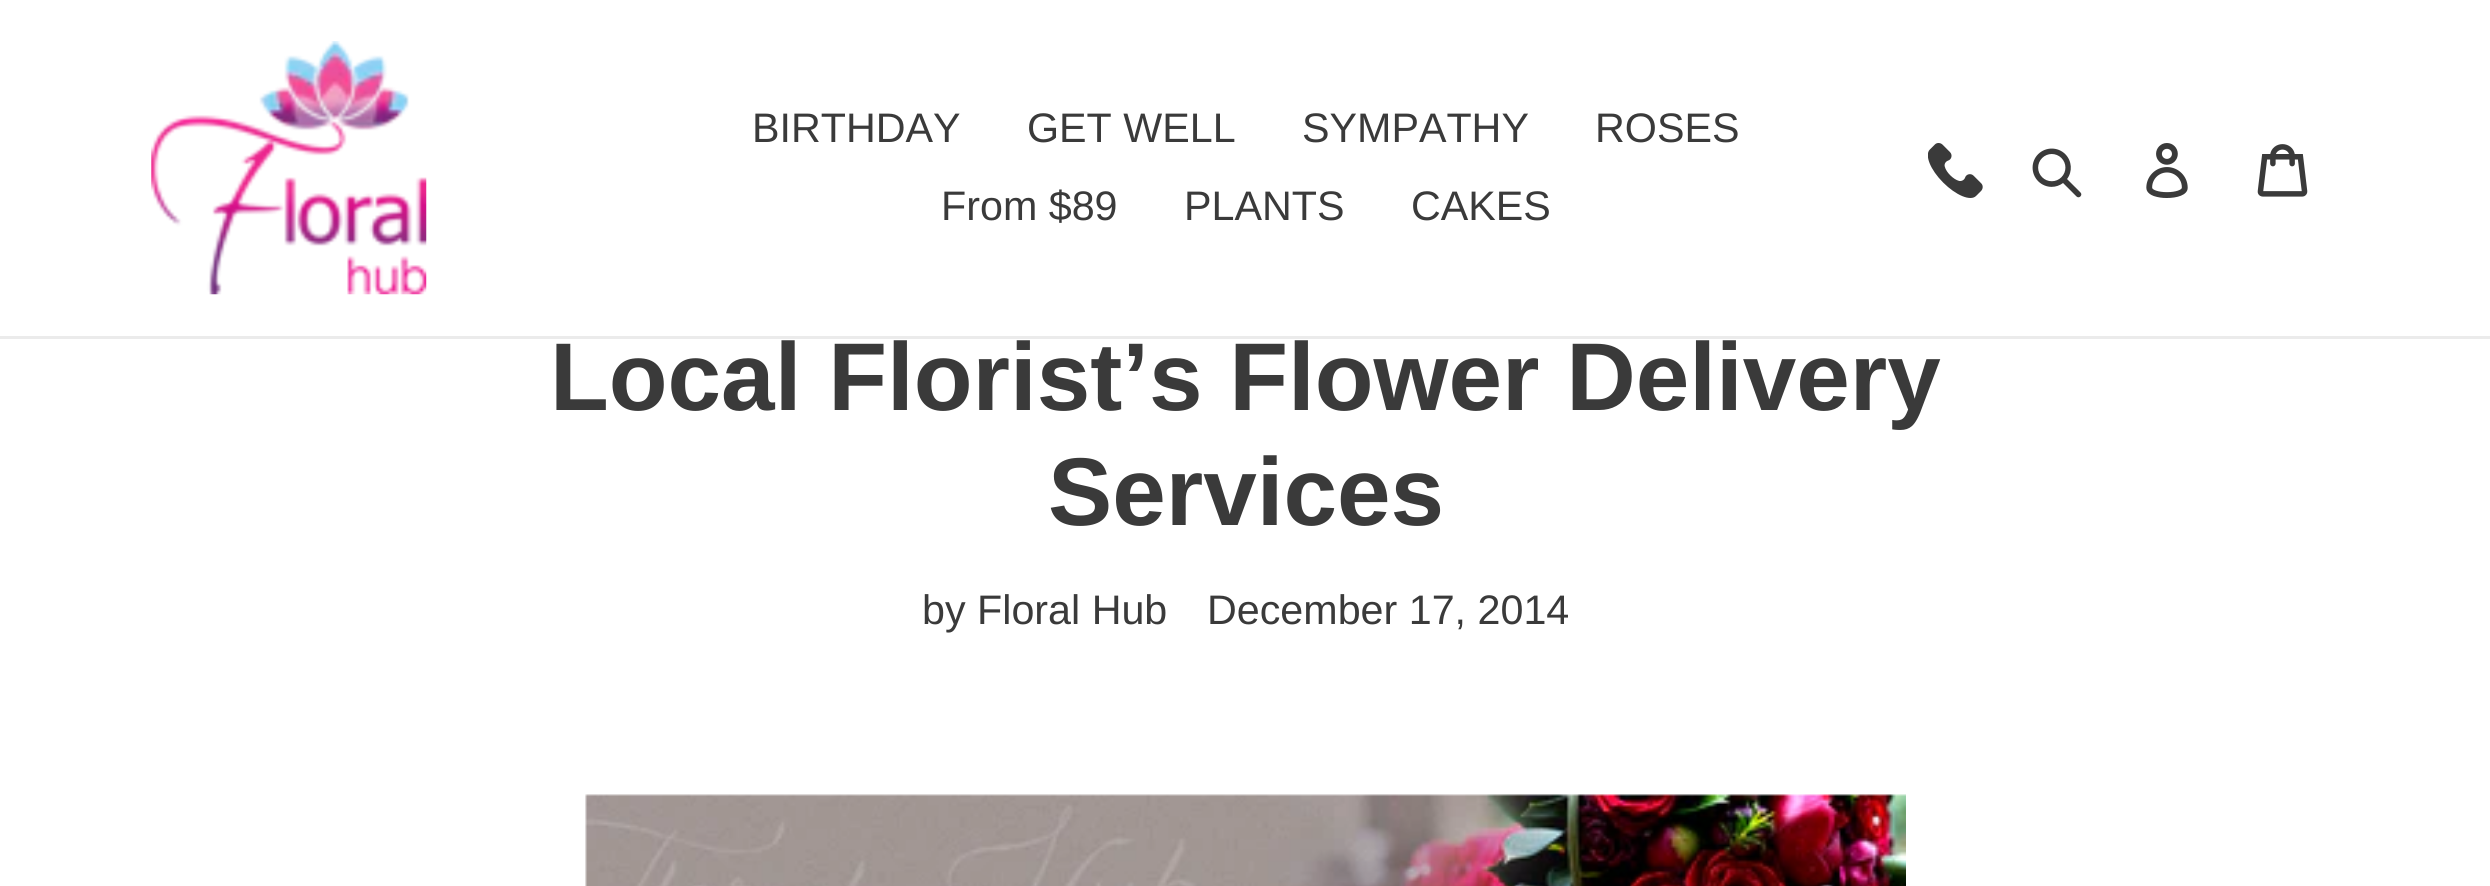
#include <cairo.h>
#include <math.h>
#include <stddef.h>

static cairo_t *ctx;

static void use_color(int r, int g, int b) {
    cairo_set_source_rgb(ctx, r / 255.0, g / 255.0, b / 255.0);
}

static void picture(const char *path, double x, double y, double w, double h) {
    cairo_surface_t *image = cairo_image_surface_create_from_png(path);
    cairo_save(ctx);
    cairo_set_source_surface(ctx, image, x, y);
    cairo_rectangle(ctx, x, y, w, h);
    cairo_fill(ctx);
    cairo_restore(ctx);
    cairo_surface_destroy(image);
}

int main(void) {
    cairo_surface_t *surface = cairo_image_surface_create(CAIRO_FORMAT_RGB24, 2490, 886);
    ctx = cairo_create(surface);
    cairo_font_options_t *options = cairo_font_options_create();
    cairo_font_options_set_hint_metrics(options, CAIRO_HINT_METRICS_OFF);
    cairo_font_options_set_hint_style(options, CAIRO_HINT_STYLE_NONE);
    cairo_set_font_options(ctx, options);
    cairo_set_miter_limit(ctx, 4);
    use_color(255, 255, 255);
    cairo_paint(ctx);
    use_color(235, 235, 235);
    cairo_rectangle(ctx, 0, 336, 2490, 3);
    cairo_fill(ctx);
    picture("img1.png", 151, 41, 276, 254);
    cairo_select_font_face(ctx, "Liberation Sans", CAIRO_FONT_SLANT_NORMAL, CAIRO_FONT_WEIGHT_NORMAL);
    cairo_set_font_size(ctx, 41.25);
    use_color(58, 58, 58);
    cairo_move_to(ctx, 752, 142);
    cairo_show_text(ctx, "BIRTHDAY");
    cairo_move_to(ctx, 1027, 142);
    cairo_show_text(ctx, "GET WELL");
    cairo_move_to(ctx, 1302, 142);
    cairo_show_text(ctx, "SYMPATHY");
    cairo_move_to(ctx, 1595, 142);
    cairo_show_text(ctx, "ROSES");
    cairo_move_to(ctx, 941, 220);
    cairo_show_text(ctx, "From $89");
    cairo_move_to(ctx, 1184, 220);
    cairo_show_text(ctx, "PLANTS");
    cairo_move_to(ctx, 1411, 220);
    cairo_show_text(ctx, "CAKES");
    picture("img2.png", 1928, 143, 55, 55);
    picture("img3.png", 2032, 148, 50, 50);
    picture("img4.png", 2146, 143, 42, 55);
    picture("img5.png", 2257, 144, 51, 53);
    cairo_select_font_face(ctx, "Liberation Sans", CAIRO_FONT_SLANT_NORMAL, CAIRO_FONT_WEIGHT_BOLD);
    cairo_set_font_size(ctx, 96.25);
    cairo_move_to(ctx, 550, 410);
    cairo_show_text(ctx, "Local Florist’s Flower Delivery");
    cairo_move_to(ctx, 1048, 525);
    cairo_show_text(ctx, "Services");
    cairo_select_font_face(ctx, "Liberation Sans", CAIRO_FONT_SLANT_NORMAL, CAIRO_FONT_WEIGHT_NORMAL);
    cairo_set_font_size(ctx, 41.25);
    cairo_move_to(ctx, 922, 624);
    cairo_show_text(ctx, "by Floral Hub");
    cairo_move_to(ctx, 1207, 624);
    cairo_show_text(ctx, "December 17, 2014");
    picture("img6.png", 585, 794, 1321, 92);
    cairo_surface_write_to_png(surface, "result.png");
    cairo_font_options_destroy(options);
    cairo_destroy(ctx);
    cairo_surface_destroy(surface);
    return 0;
}
